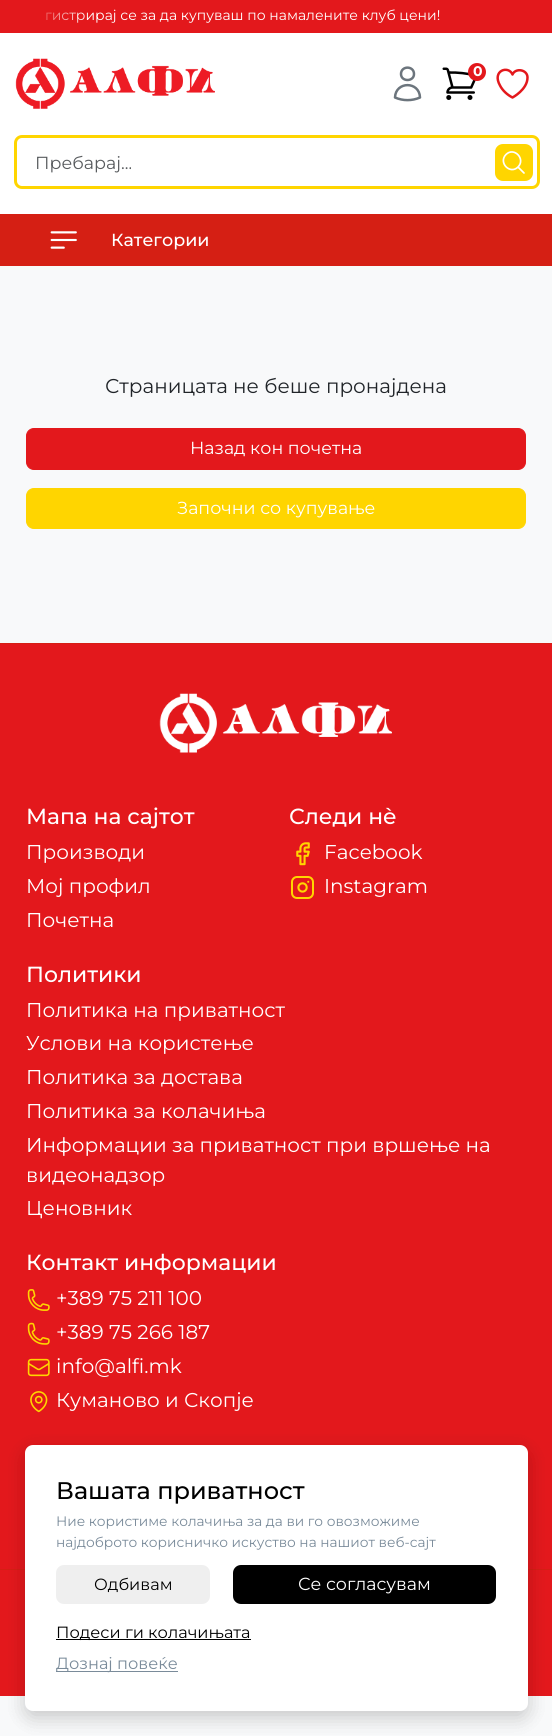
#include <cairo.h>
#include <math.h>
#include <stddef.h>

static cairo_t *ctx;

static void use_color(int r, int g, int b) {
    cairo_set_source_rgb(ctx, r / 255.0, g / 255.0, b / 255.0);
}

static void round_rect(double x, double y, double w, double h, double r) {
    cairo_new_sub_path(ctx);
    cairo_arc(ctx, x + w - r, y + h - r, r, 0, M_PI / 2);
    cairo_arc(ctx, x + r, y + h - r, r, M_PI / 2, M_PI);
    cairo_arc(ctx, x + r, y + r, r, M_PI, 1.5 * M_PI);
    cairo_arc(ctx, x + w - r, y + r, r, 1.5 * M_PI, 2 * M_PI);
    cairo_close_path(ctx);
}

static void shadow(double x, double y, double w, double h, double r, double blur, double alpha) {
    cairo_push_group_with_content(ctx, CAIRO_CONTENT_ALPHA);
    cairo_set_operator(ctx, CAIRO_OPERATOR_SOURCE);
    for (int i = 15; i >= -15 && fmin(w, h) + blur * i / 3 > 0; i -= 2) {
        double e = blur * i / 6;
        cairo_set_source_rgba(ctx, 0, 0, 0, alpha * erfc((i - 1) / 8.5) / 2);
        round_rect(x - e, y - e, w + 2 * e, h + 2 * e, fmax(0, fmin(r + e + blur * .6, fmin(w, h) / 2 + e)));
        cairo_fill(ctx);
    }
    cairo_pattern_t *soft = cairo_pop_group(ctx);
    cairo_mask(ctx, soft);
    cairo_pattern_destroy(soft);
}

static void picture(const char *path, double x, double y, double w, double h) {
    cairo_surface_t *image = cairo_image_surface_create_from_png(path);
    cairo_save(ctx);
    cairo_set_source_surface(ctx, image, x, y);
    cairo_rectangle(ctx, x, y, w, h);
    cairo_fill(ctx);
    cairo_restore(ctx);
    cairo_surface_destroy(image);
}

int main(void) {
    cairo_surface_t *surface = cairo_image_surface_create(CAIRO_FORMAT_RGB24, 552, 1736);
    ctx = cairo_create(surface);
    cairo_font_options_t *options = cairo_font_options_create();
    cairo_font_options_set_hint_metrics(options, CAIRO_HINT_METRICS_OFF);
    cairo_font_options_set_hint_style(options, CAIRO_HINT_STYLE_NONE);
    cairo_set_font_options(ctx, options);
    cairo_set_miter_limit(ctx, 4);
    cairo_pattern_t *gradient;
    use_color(248, 249, 250);
    cairo_paint(ctx);
    use_color(227, 24, 28);
    cairo_rectangle(ctx, 0, 0, 552, 33);
    cairo_fill(ctx);
    cairo_select_font_face(ctx, "Montserrat", CAIRO_FONT_SLANT_NORMAL, CAIRO_FONT_WEIGHT_NORMAL);
    cairo_set_font_size(ctx, 14);
    use_color(255, 255, 255);
    cairo_move_to(ctx, 45, 20);
    cairo_show_text(ctx, "гистрирај се за да купуваш по намалените клуб цени!");
    gradient = cairo_pattern_create_linear(26, 16, 89, 16);
    cairo_pattern_add_color_stop_rgba(gradient, 0, 0.89, 0.094, 0.11, 1);
    cairo_pattern_add_color_stop_rgba(gradient, 1, 0.89, 0.094, 0.11, 0);
    cairo_set_source(ctx, gradient);
    cairo_pattern_destroy(gradient);
    cairo_rectangle(ctx, 46, 12, 42, 11);
    cairo_fill(ctx);
    use_color(255, 255, 255);
    cairo_rectangle(ctx, 0, 33, 552, 181);
    cairo_fill(ctx);
    picture("img1.png", 15, 58, 200, 51);
    cairo_new_path(ctx);
    cairo_move_to(ctx, 414, 74);
    cairo_curve_to(ctx, 414, 82, 401, 82, 401, 74);
    cairo_curve_to(ctx, 401, 65.5, 414, 65.5, 414, 74);
    cairo_close_path(ctx);
    cairo_move_to(ctx, 395, 97.5);
    cairo_curve_to(ctx, 395.5, 81, 419.5, 81, 420, 97.5);
    cairo_curve_to(ctx, 412, 101, 403, 101, 395, 97.5);
    cairo_close_path(ctx);
    use_color(108, 117, 125);
    cairo_set_line_width(ctx, 2.5);
    cairo_set_line_cap(ctx, CAIRO_LINE_CAP_ROUND);
    cairo_set_line_join(ctx, CAIRO_LINE_JOIN_ROUND);
    cairo_stroke(ctx);
    picture("img2.png", 442, 67, 34, 33);
    use_color(227, 24, 28);
    cairo_arc(ctx, 477, 72, 9, 0, 2 * M_PI);
    cairo_fill(ctx);
    cairo_select_font_face(ctx, "Montserrat", CAIRO_FONT_SLANT_NORMAL, CAIRO_FONT_WEIGHT_BOLD);
    use_color(255, 255, 255);
    cairo_move_to(ctx, 473, 76);
    cairo_show_text(ctx, "0");
    cairo_new_path(ctx);
    cairo_move_to(ctx, 527.5, 77.5);
    cairo_curve_to(ctx, 527.5, 69.5, 515.5, 67.5, 512.5, 74.5);
    cairo_curve_to(ctx, 508.5, 65, 491.5, 70.5, 500, 85.5);
    cairo_curve_to(ctx, 502.5, 90.5, 507.5, 95, 512.5, 97.5);
    cairo_curve_to(ctx, 512.5, 97.5, 527.5, 89.5, 527.5, 77.5);
    cairo_close_path(ctx);
    use_color(227, 24, 28);
    cairo_stroke(ctx);
    round_rect(15.5, 136.5, 523, 51, 6.5);
    use_color(255, 213, 0);
    cairo_set_line_width(ctx, 3);
    cairo_set_line_cap(ctx, CAIRO_LINE_CAP_BUTT);
    cairo_set_line_join(ctx, CAIRO_LINE_JOIN_MITER);
    cairo_stroke(ctx);
    cairo_select_font_face(ctx, "Montserrat", CAIRO_FONT_SLANT_NORMAL, CAIRO_FONT_WEIGHT_NORMAL);
    cairo_set_font_size(ctx, 17.5);
    use_color(89, 92, 95);
    cairo_move_to(ctx, 35, 169);
    cairo_show_text(ctx, "Пребарај...");
    use_color(255, 213, 0);
    round_rect(495, 144, 38, 37, 8);
    cairo_fill(ctx);
    cairo_new_path(ctx);
    cairo_move_to(ctx, 524, 173);
    cairo_line_to(ctx, 518, 167);
    cairo_move_to(ctx, 518, 167);
    cairo_curve_to(ctx, 526, 159, 514, 146.5, 506, 154.5);
    cairo_curve_to(ctx, 498, 162.5, 510, 175, 518, 167);
    cairo_close_path(ctx);
    use_color(255, 255, 255);
    cairo_set_line_width(ctx, 1.7);
    cairo_set_line_cap(ctx, CAIRO_LINE_CAP_ROUND);
    cairo_set_line_join(ctx, CAIRO_LINE_JOIN_ROUND);
    cairo_stroke(ctx);
    use_color(213, 31, 20);
    cairo_rectangle(ctx, 0, 214, 552, 52);
    cairo_fill(ctx);
    picture("img3.png", 50, 231, 27, 18);
    cairo_select_font_face(ctx, "Montserrat Medium", CAIRO_FONT_SLANT_NORMAL, CAIRO_FONT_WEIGHT_NORMAL);
    use_color(255, 255, 255);
    cairo_move_to(ctx, 111, 246);
    cairo_show_text(ctx, "Категории");
    cairo_select_font_face(ctx, "Montserrat", CAIRO_FONT_SLANT_NORMAL, CAIRO_FONT_WEIGHT_NORMAL);
    cairo_set_font_size(ctx, 20);
    use_color(33, 37, 41);
    cairo_move_to(ctx, 105, 393);
    cairo_show_text(ctx, "Страницата не беше пронајдена");
    use_color(227, 24, 28);
    round_rect(26.5, 428.5, 499, 41, 7.5);
    cairo_fill_preserve(ctx);
    cairo_set_line_width(ctx, 1);
    cairo_set_line_cap(ctx, CAIRO_LINE_CAP_BUTT);
    cairo_set_line_join(ctx, CAIRO_LINE_JOIN_MITER);
    cairo_stroke(ctx);
    cairo_set_font_size(ctx, 17.5);
    use_color(255, 255, 255);
    cairo_move_to(ctx, 190, 454);
    cairo_show_text(ctx, "Назад кон почетна");
    use_color(255, 213, 0);
    round_rect(26.5, 488.5, 499, 40, 7.5);
    cairo_fill_preserve(ctx);
    cairo_stroke(ctx);
    use_color(255, 255, 255);
    cairo_move_to(ctx, 177, 514);
    cairo_show_text(ctx, "Започни со купување");
    use_color(227, 24, 28);
    cairo_rectangle(ctx, 0, 644, 552, 925);
    cairo_fill(ctx);
    use_color(213, 31, 20);
    cairo_rectangle(ctx, 0, 643, 552, 1);
    cairo_fill(ctx);
    picture("img4.png", 159, 693, 233, 60);
    cairo_select_font_face(ctx, "Montserrat Medium", CAIRO_FONT_SLANT_NORMAL, CAIRO_FONT_WEIGHT_NORMAL);
    cairo_set_font_size(ctx, 21.9);
    use_color(255, 255, 255);
    cairo_move_to(ctx, 26, 824);
    cairo_show_text(ctx, "Мапа на сајтот");
    cairo_select_font_face(ctx, "Montserrat", CAIRO_FONT_SLANT_NORMAL, CAIRO_FONT_WEIGHT_NORMAL);
    cairo_set_font_size(ctx, 20);
    cairo_move_to(ctx, 26, 859);
    cairo_show_text(ctx, "Производи");
    cairo_move_to(ctx, 26, 893);
    cairo_show_text(ctx, "Мој профил");
    cairo_move_to(ctx, 26, 927);
    cairo_show_text(ctx, "Почетна");
    cairo_select_font_face(ctx, "Montserrat Medium", CAIRO_FONT_SLANT_NORMAL, CAIRO_FONT_WEIGHT_NORMAL);
    cairo_set_font_size(ctx, 21.9);
    cairo_move_to(ctx, 289, 824);
    cairo_show_text(ctx, "Следи нè");
    picture("img5.png", 296, 842, 14, 24);
    cairo_select_font_face(ctx, "Montserrat", CAIRO_FONT_SLANT_NORMAL, CAIRO_FONT_WEIGHT_NORMAL);
    cairo_set_font_size(ctx, 20);
    cairo_move_to(ctx, 324, 859);
    cairo_show_text(ctx, "Facebook");
    picture("img6.png", 291, 876, 23, 23);
    cairo_move_to(ctx, 324, 893);
    cairo_show_text(ctx, "Instagram");
    cairo_select_font_face(ctx, "Montserrat Medium", CAIRO_FONT_SLANT_NORMAL, CAIRO_FONT_WEIGHT_NORMAL);
    cairo_set_font_size(ctx, 21.9);
    cairo_move_to(ctx, 26, 982);
    cairo_show_text(ctx, "Политики");
    cairo_select_font_face(ctx, "Montserrat", CAIRO_FONT_SLANT_NORMAL, CAIRO_FONT_WEIGHT_NORMAL);
    cairo_set_font_size(ctx, 20);
    cairo_move_to(ctx, 26, 1017);
    cairo_show_text(ctx, "Политика на приватност");
    cairo_move_to(ctx, 26, 1050);
    cairo_show_text(ctx, "Услови на користење");
    cairo_move_to(ctx, 26, 1084);
    cairo_show_text(ctx, "Политика за достава");
    cairo_move_to(ctx, 26, 1118);
    cairo_show_text(ctx, "Политика за колачиња");
    cairo_move_to(ctx, 26, 1152);
    cairo_show_text(ctx, "Информации за приватност при вршење на");
    cairo_move_to(ctx, 26, 1182);
    cairo_show_text(ctx, "видеонадзор");
    cairo_move_to(ctx, 26, 1215);
    cairo_show_text(ctx, "Ценовник");
    cairo_select_font_face(ctx, "Montserrat Medium", CAIRO_FONT_SLANT_NORMAL, CAIRO_FONT_WEIGHT_NORMAL);
    cairo_set_font_size(ctx, 21.9);
    cairo_move_to(ctx, 26, 1270);
    cairo_show_text(ctx, "Контакт информации");
    picture("img7.png", 27, 1289, 23, 22);
    cairo_select_font_face(ctx, "Montserrat", CAIRO_FONT_SLANT_NORMAL, CAIRO_FONT_WEIGHT_NORMAL);
    cairo_set_font_size(ctx, 20);
    cairo_move_to(ctx, 56, 1305);
    cairo_show_text(ctx, "+389 75 211 100");
    picture("img8.png", 27, 1322, 23, 23);
    cairo_move_to(ctx, 56, 1339);
    cairo_show_text(ctx, "+389 75 266 187");
    picture("img9.png", 27, 1358, 23, 19);
    cairo_move_to(ctx, 56, 1373);
    cairo_show_text(ctx, "info@alfi.mk");
    picture("img10.png", 30, 1391, 18, 22);
    cairo_move_to(ctx, 56, 1407);
    cairo_show_text(ctx, "Куманово и Скопје");
    use_color(227, 24, 28);
    cairo_rectangle(ctx, 0, 1570, 552, 126);
    cairo_fill(ctx);
    use_color(213, 31, 20);
    cairo_rectangle(ctx, 0, 1569, 552, 1);
    cairo_fill(ctx);
    use_color(0, 0, 0);
    shadow(25, 1451, 503, 267, 8, 9.5, 0.1);
    shadow(25, 1451, 503, 267, 8, 9.5, 0.1);
    use_color(255, 255, 255);
    round_rect(25, 1445, 503, 266, 8);
    cairo_fill(ctx);
    cairo_select_font_face(ctx, "Montserrat Medium", CAIRO_FONT_SLANT_NORMAL, CAIRO_FONT_WEIGHT_NORMAL);
    cairo_set_font_size(ctx, 24);
    use_color(0, 0, 0);
    cairo_move_to(ctx, 56, 1499);
    cairo_show_text(ctx, "Вашата приватност");
    cairo_select_font_face(ctx, "Montserrat", CAIRO_FONT_SLANT_NORMAL, CAIRO_FONT_WEIGHT_NORMAL);
    cairo_set_font_size(ctx, 13.75);
    use_color(122, 139, 154);
    cairo_move_to(ctx, 56, 1526);
    cairo_show_text(ctx, "Ние користиме колачиња за да ви го овозможиме");
    cairo_move_to(ctx, 56, 1547);
    cairo_show_text(ctx, "најдоброто корисничко искуство на нашиот веб-сајт");
    use_color(239, 239, 239);
    round_rect(56, 1565, 154, 39, 8);
    cairo_fill(ctx);
    cairo_set_font_size(ctx, 16.25);
    use_color(0, 0, 0);
    cairo_move_to(ctx, 94, 1590);
    cairo_show_text(ctx, "Одбивам");
    round_rect(233, 1565, 263, 39, 8);
    cairo_fill(ctx);
    cairo_set_font_size(ctx, 17.5);
    use_color(255, 255, 255);
    cairo_move_to(ctx, 298, 1590);
    cairo_show_text(ctx, "Се согласувам");
    use_color(0, 0, 0);
    cairo_rectangle(ctx, 56, 1639, 195, 1);
    cairo_fill(ctx);
    cairo_set_font_size(ctx, 16.25);
    cairo_move_to(ctx, 56, 1638);
    cairo_show_text(ctx, "Подеси ги колачињата");
    use_color(122, 139, 154);
    cairo_rectangle(ctx, 56, 1671, 122, 1);
    cairo_fill(ctx);
    cairo_move_to(ctx, 56, 1669);
    cairo_show_text(ctx, "Дознај повеќе");
    cairo_surface_write_to_png(surface, "result.png");
    cairo_font_options_destroy(options);
    cairo_destroy(ctx);
    cairo_surface_destroy(surface);
    return 0;
}
